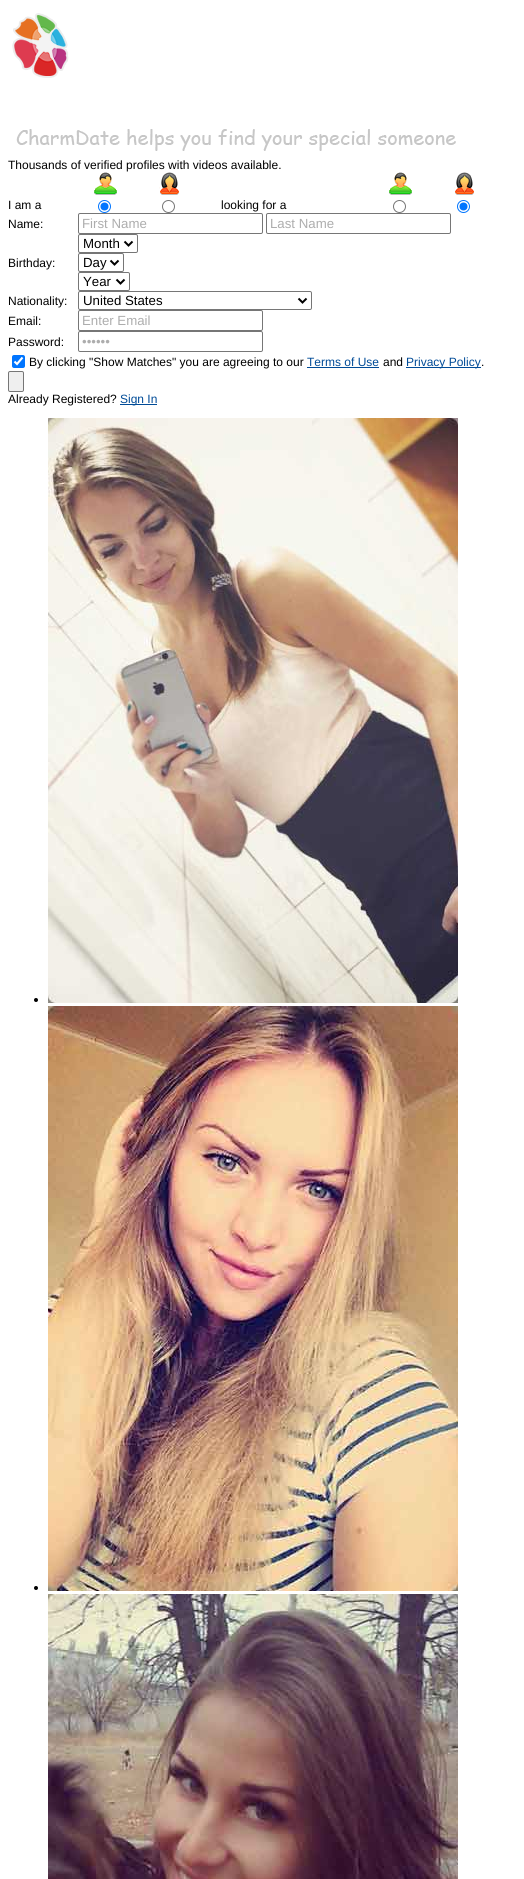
#include <cairo.h>
#include <math.h>
#include <stddef.h>

static cairo_t *ctx;

static void use_color(int r, int g, int b) {
    cairo_set_source_rgb(ctx, r / 255.0, g / 255.0, b / 255.0);
}

static void round_rect(double x, double y, double w, double h, double r) {
    cairo_new_sub_path(ctx);
    cairo_arc(ctx, x + w - r, y + h - r, r, 0, M_PI / 2);
    cairo_arc(ctx, x + r, y + h - r, r, M_PI / 2, M_PI);
    cairo_arc(ctx, x + r, y + r, r, M_PI, 1.5 * M_PI);
    cairo_arc(ctx, x + w - r, y + r, r, 1.5 * M_PI, 2 * M_PI);
    cairo_close_path(ctx);
}

static void picture(const char *path, double x, double y, double w, double h) {
    cairo_surface_t *image = cairo_image_surface_create_from_png(path);
    cairo_save(ctx);
    cairo_set_source_surface(ctx, image, x, y);
    cairo_rectangle(ctx, x, y, w, h);
    cairo_fill(ctx);
    cairo_restore(ctx);
    cairo_surface_destroy(image);
}

int main(void) {
    cairo_surface_t *surface = cairo_image_surface_create(CAIRO_FORMAT_RGB24, 524, 1879);
    ctx = cairo_create(surface);
    cairo_font_options_t *options = cairo_font_options_create();
    cairo_font_options_set_hint_metrics(options, CAIRO_HINT_METRICS_OFF);
    cairo_font_options_set_hint_style(options, CAIRO_HINT_STYLE_NONE);
    cairo_set_font_options(ctx, options);
    cairo_set_miter_limit(ctx, 4);
    use_color(255, 255, 255);
    cairo_paint(ctx);
    picture("img1.png", 12, 13, 57, 65);
    picture("img2.png", 16, 129, 440, 22);
    cairo_select_font_face(ctx, "Liberation Sans", CAIRO_FONT_SLANT_NORMAL, CAIRO_FONT_WEIGHT_NORMAL);
    cairo_set_font_size(ctx, 12);
    use_color(0, 0, 0);
    cairo_move_to(ctx, 8, 169);
    cairo_show_text(ctx, "Thousands of verified profiles with videos available.");
    picture("img3.png", 94, 172, 23, 23);
    picture("img4.png", 159, 172, 20, 23);
    picture("img3.png", 389, 172, 23, 23);
    picture("img4.png", 454, 172, 20, 23);
    cairo_move_to(ctx, 8, 209);
    cairo_show_text(ctx, "I am a");
    cairo_new_path(ctx);
    cairo_arc(ctx, 104.5, 206.5, 6, 0, 2 * M_PI);
    use_color(0, 117, 255);
    cairo_set_line_width(ctx, 1);
    cairo_stroke(ctx);
    cairo_arc(ctx, 104.5, 206.5, 4, 0, 2 * M_PI);
    cairo_fill(ctx);
    cairo_arc(ctx, 168.5, 206.5, 6, 0, 2 * M_PI);
    use_color(118, 118, 118);
    cairo_stroke(ctx);
    use_color(0, 0, 0);
    cairo_move_to(ctx, 221, 209);
    cairo_show_text(ctx, "looking for a");
    cairo_new_path(ctx);
    cairo_arc(ctx, 399.5, 206.5, 6, 0, 2 * M_PI);
    use_color(118, 118, 118);
    cairo_stroke(ctx);
    cairo_arc(ctx, 463.5, 206.5, 6, 0, 2 * M_PI);
    use_color(0, 117, 255);
    cairo_stroke(ctx);
    cairo_arc(ctx, 463.5, 206.5, 4, 0, 2 * M_PI);
    cairo_fill(ctx);
    use_color(0, 0, 0);
    cairo_move_to(ctx, 8, 228);
    cairo_show_text(ctx, "Name:");
    round_rect(78.5, 213.5, 184, 20, 1.5);
    use_color(118, 118, 118);
    cairo_stroke(ctx);
    cairo_set_font_size(ctx, 13.25);
    use_color(173, 173, 173);
    cairo_move_to(ctx, 82, 228);
    cairo_show_text(ctx, "First Name");
    round_rect(266.5, 213.5, 184, 20, 1.5);
    use_color(118, 118, 118);
    cairo_stroke(ctx);
    use_color(173, 173, 173);
    cairo_move_to(ctx, 270, 228);
    cairo_show_text(ctx, "Last Name");
    cairo_set_font_size(ctx, 12);
    use_color(0, 0, 0);
    cairo_move_to(ctx, 8, 267);
    cairo_show_text(ctx, "Birthday:");
    round_rect(78.5, 234.5, 59, 18, 1.5);
    use_color(118, 118, 118);
    cairo_stroke(ctx);
    cairo_new_path(ctx);
    cairo_move_to(ctx, 124.5, 241.5);
    cairo_line_to(ctx, 128.5, 245.5);
    cairo_line_to(ctx, 132.5, 241.5);
    use_color(0, 0, 0);
    cairo_set_line_width(ctx, 2);
    cairo_stroke(ctx);
    cairo_set_font_size(ctx, 13.25);
    cairo_move_to(ctx, 83, 248);
    cairo_show_text(ctx, "Month");
    round_rect(78.5, 253.5, 45, 18, 1.5);
    use_color(118, 118, 118);
    cairo_set_line_width(ctx, 1);
    cairo_stroke(ctx);
    cairo_new_path(ctx);
    cairo_move_to(ctx, 110.5, 260.5);
    cairo_line_to(ctx, 114.5, 264.5);
    cairo_line_to(ctx, 118.5, 260.5);
    use_color(0, 0, 0);
    cairo_set_line_width(ctx, 2);
    cairo_stroke(ctx);
    cairo_move_to(ctx, 83, 267);
    cairo_show_text(ctx, "Day");
    round_rect(78.5, 272.5, 51, 18, 1.5);
    use_color(118, 118, 118);
    cairo_set_line_width(ctx, 1);
    cairo_stroke(ctx);
    cairo_new_path(ctx);
    cairo_move_to(ctx, 116.5, 279.5);
    cairo_line_to(ctx, 120.5, 283.5);
    cairo_line_to(ctx, 124.5, 279.5);
    use_color(0, 0, 0);
    cairo_set_line_width(ctx, 2);
    cairo_stroke(ctx);
    cairo_move_to(ctx, 83, 286);
    cairo_show_text(ctx, "Year");
    cairo_set_font_size(ctx, 12);
    cairo_move_to(ctx, 8, 305);
    cairo_show_text(ctx, "Nationality:");
    round_rect(78.5, 291.5, 233, 18, 1.5);
    use_color(118, 118, 118);
    cairo_set_line_width(ctx, 1);
    cairo_stroke(ctx);
    cairo_new_path(ctx);
    cairo_move_to(ctx, 298.5, 298.5);
    cairo_line_to(ctx, 302.5, 302.5);
    cairo_line_to(ctx, 306.5, 298.5);
    use_color(0, 0, 0);
    cairo_set_line_width(ctx, 2);
    cairo_stroke(ctx);
    cairo_set_font_size(ctx, 13.25);
    cairo_move_to(ctx, 83, 305);
    cairo_show_text(ctx, "United States");
    cairo_set_font_size(ctx, 12);
    cairo_move_to(ctx, 8, 325);
    cairo_show_text(ctx, "Email:");
    round_rect(78.5, 310.5, 184, 20, 1.5);
    use_color(118, 118, 118);
    cairo_set_line_width(ctx, 1);
    cairo_stroke(ctx);
    cairo_set_font_size(ctx, 13.25);
    use_color(173, 173, 173);
    cairo_move_to(ctx, 82, 325);
    cairo_show_text(ctx, "Enter Email");
    cairo_set_font_size(ctx, 12);
    use_color(0, 0, 0);
    cairo_move_to(ctx, 8, 346);
    cairo_show_text(ctx, "Password:");
    round_rect(78.5, 331.5, 184, 20, 1.5);
    use_color(118, 118, 118);
    cairo_stroke(ctx);
    cairo_set_font_size(ctx, 13.25);
    use_color(173, 173, 173);
    cairo_move_to(ctx, 82, 346);
    cairo_show_text(ctx, "••••••");
    use_color(0, 117, 255);
    round_rect(12, 355, 13, 13, 2);
    cairo_fill(ctx);
    cairo_new_path(ctx);
    cairo_move_to(ctx, 14.5, 361.5);
    cairo_line_to(ctx, 17, 364);
    cairo_line_to(ctx, 22.5, 357.5);
    use_color(255, 255, 255);
    cairo_set_line_width(ctx, 2.1);
    cairo_stroke(ctx);
    cairo_set_font_size(ctx, 12);
    use_color(0, 0, 0);
    cairo_move_to(ctx, 29, 366);
    cairo_show_text(ctx, "By clicking \"Show Matches\" you are agreeing to our");
    use_color(0, 75, 151);
    cairo_move_to(ctx, 307, 366);
    cairo_show_text(ctx, "Terms of Use");
    cairo_rectangle(ctx, 307, 367, 72, 1);
    cairo_fill(ctx);
    use_color(0, 0, 0);
    cairo_move_to(ctx, 383, 366);
    cairo_show_text(ctx, "and");
    use_color(0, 75, 151);
    cairo_rectangle(ctx, 406, 367, 75, 1);
    cairo_fill(ctx);
    cairo_move_to(ctx, 406, 366);
    cairo_show_text(ctx, "Privacy Policy");
    use_color(0, 0, 0);
    cairo_move_to(ctx, 481, 366);
    cairo_show_text(ctx, ".");
    use_color(239, 239, 239);
    round_rect(8.5, 371.5, 15, 20, 1.5);
    cairo_fill_preserve(ctx);
    use_color(118, 118, 118);
    cairo_set_line_width(ctx, 1);
    cairo_stroke(ctx);
    use_color(0, 0, 0);
    cairo_move_to(ctx, 8, 403);
    cairo_show_text(ctx, "Already Registered?");
    use_color(0, 75, 151);
    cairo_rectangle(ctx, 120, 404, 37, 1);
    cairo_fill(ctx);
    cairo_move_to(ctx, 120, 403);
    cairo_show_text(ctx, "Sign In");
    use_color(0, 0, 0);
    cairo_new_path(ctx);
    cairo_arc(ctx, 36, 1000, 2, 0, 2 * M_PI);
    cairo_fill(ctx);
    picture("img5.png", 48, 418, 410, 585);
    cairo_arc(ctx, 36, 1588, 2, 0, 2 * M_PI);
    cairo_fill(ctx);
    picture("img6.png", 48, 1006, 410, 585);
    picture("img7.png", 48, 1594, 410, 285);
    cairo_surface_write_to_png(surface, "result.png");
    cairo_font_options_destroy(options);
    cairo_destroy(ctx);
    cairo_surface_destroy(surface);
    return 0;
}
